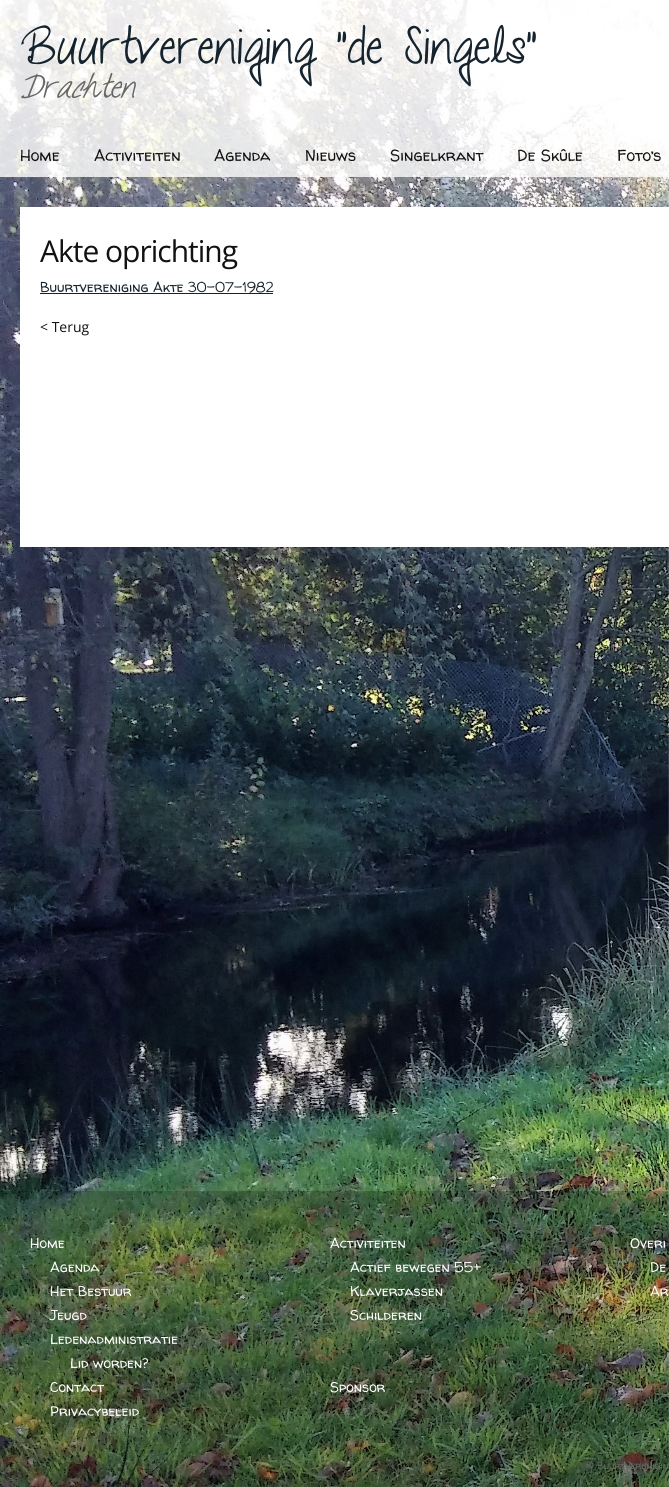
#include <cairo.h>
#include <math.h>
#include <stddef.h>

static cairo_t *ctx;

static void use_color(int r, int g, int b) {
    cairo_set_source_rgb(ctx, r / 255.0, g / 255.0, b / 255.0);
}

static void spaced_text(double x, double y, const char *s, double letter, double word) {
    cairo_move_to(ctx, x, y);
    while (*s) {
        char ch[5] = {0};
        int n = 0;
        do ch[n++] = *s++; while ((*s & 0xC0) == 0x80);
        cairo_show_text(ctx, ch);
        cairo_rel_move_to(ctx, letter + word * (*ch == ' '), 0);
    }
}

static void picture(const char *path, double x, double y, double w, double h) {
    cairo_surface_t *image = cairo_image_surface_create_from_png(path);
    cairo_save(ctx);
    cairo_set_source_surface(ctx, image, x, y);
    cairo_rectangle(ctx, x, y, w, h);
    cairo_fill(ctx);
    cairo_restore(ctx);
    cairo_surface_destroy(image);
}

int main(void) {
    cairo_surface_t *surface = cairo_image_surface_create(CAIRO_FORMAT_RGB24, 669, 1487);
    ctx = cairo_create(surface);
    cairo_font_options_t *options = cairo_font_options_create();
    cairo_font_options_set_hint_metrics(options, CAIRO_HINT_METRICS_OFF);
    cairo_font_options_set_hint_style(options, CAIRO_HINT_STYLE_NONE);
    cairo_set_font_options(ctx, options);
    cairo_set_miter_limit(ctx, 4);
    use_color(255, 255, 255);
    cairo_paint(ctx);
    picture("img1.png", 0, 0, 669, 1487);
    cairo_set_source_rgba(ctx, 1, 1, 1, 0.8);
    cairo_rectangle(ctx, 0, 0, 669, 177);
    cairo_fill(ctx);
    cairo_select_font_face(ctx, "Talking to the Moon", CAIRO_FONT_SLANT_NORMAL, CAIRO_FONT_WEIGHT_NORMAL);
    cairo_set_font_size(ctx, 50);
    use_color(20, 35, 46);
    cairo_move_to(ctx, 20, 64);
    cairo_show_text(ctx, "Buurtvereniging \"de Singels\"");
    cairo_select_font_face(ctx, "Talking to the Moon", CAIRO_FONT_SLANT_ITALIC, CAIRO_FONT_WEIGHT_NORMAL);
    cairo_set_font_size(ctx, 32);
    use_color(102, 102, 102);
    cairo_move_to(ctx, 20, 98);
    cairo_show_text(ctx, "Drachten");
    cairo_select_font_face(ctx, "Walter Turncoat", CAIRO_FONT_SLANT_NORMAL, CAIRO_FONT_WEIGHT_NORMAL);
    cairo_set_font_size(ctx, 16);
    use_color(17, 17, 17);
    cairo_move_to(ctx, 20, 161);
    cairo_show_text(ctx, "Home");
    cairo_move_to(ctx, 94, 161);
    cairo_show_text(ctx, "Activiteiten");
    cairo_move_to(ctx, 214, 161);
    cairo_show_text(ctx, "Agenda");
    cairo_move_to(ctx, 305, 161);
    cairo_show_text(ctx, "Nieuws");
    cairo_move_to(ctx, 390, 161);
    cairo_show_text(ctx, "Singelkrant");
    cairo_move_to(ctx, 517, 161);
    cairo_show_text(ctx, "De Skûle");
    cairo_move_to(ctx, 617, 161);
    cairo_show_text(ctx, "Foto’s");
    use_color(255, 255, 255);
    cairo_rectangle(ctx, 20, 207, 649, 340);
    cairo_fill(ctx);
    cairo_select_font_face(ctx, "Open Sans", CAIRO_FONT_SLANT_NORMAL, CAIRO_FONT_WEIGHT_NORMAL);
    cairo_set_font_size(ctx, 30);
    use_color(17, 17, 17);
    spaced_text(40, 262, "Akte oprichting", -1, 0);
    cairo_select_font_face(ctx, "Walter Turncoat", CAIRO_FONT_SLANT_NORMAL, CAIRO_FONT_WEIGHT_NORMAL);
    cairo_set_font_size(ctx, 14);
    use_color(20, 35, 46);
    cairo_move_to(ctx, 40, 292);
    cairo_show_text(ctx, "Buurtvereniging Akte 30-07-1982");
    cairo_rectangle(ctx, 40, 293, 233, 1);
    cairo_fill(ctx);
    cairo_select_font_face(ctx, "Open Sans", CAIRO_FONT_SLANT_NORMAL, CAIRO_FONT_WEIGHT_NORMAL);
    use_color(17, 17, 17);
    cairo_move_to(ctx, 40, 332);
    cairo_show_text(ctx, "< Terug");
    cairo_set_source_rgba(ctx, 0, 0, 0, 0.2);
    cairo_rectangle(ctx, 0, 1191, 669, 296);
    cairo_fill(ctx);
    cairo_select_font_face(ctx, "Walter Turncoat", CAIRO_FONT_SLANT_NORMAL, CAIRO_FONT_WEIGHT_NORMAL);
    use_color(255, 255, 255);
    cairo_move_to(ctx, 30, 1248);
    cairo_show_text(ctx, "Home");
    cairo_move_to(ctx, 50, 1272);
    cairo_show_text(ctx, "Agenda");
    cairo_move_to(ctx, 50, 1296);
    cairo_show_text(ctx, "Het Bestuur");
    cairo_move_to(ctx, 50, 1320);
    cairo_show_text(ctx, "Jeugd");
    cairo_move_to(ctx, 50, 1344);
    cairo_show_text(ctx, "Ledenadministratie");
    cairo_move_to(ctx, 70, 1368);
    cairo_show_text(ctx, "Lid worden?");
    cairo_move_to(ctx, 50, 1392);
    cairo_show_text(ctx, "Contact");
    cairo_move_to(ctx, 50, 1416);
    cairo_show_text(ctx, "Privacybeleid");
    cairo_move_to(ctx, 330, 1248);
    cairo_show_text(ctx, "Activiteiten");
    cairo_move_to(ctx, 350, 1272);
    cairo_show_text(ctx, "Actief bewegen 55+");
    cairo_move_to(ctx, 350, 1296);
    cairo_show_text(ctx, "Klaverjassen");
    cairo_move_to(ctx, 350, 1320);
    cairo_show_text(ctx, "Schilderen");
    cairo_move_to(ctx, 630, 1248);
    cairo_show_text(ctx, "Overi");
    cairo_move_to(ctx, 650, 1272);
    cairo_show_text(ctx, "De");
    cairo_move_to(ctx, 650, 1296);
    cairo_show_text(ctx, "Ar");
    cairo_move_to(ctx, 330, 1392);
    cairo_show_text(ctx, "Sponsor");
    cairo_set_font_size(ctx, 10);
    use_color(99, 107, 94);
    cairo_move_to(ctx, 586, 1469);
    cairo_show_text(ctx, "© Buurtverenigin");
    cairo_surface_write_to_png(surface, "result.png");
    cairo_font_options_destroy(options);
    cairo_destroy(ctx);
    cairo_surface_destroy(surface);
    return 0;
}
